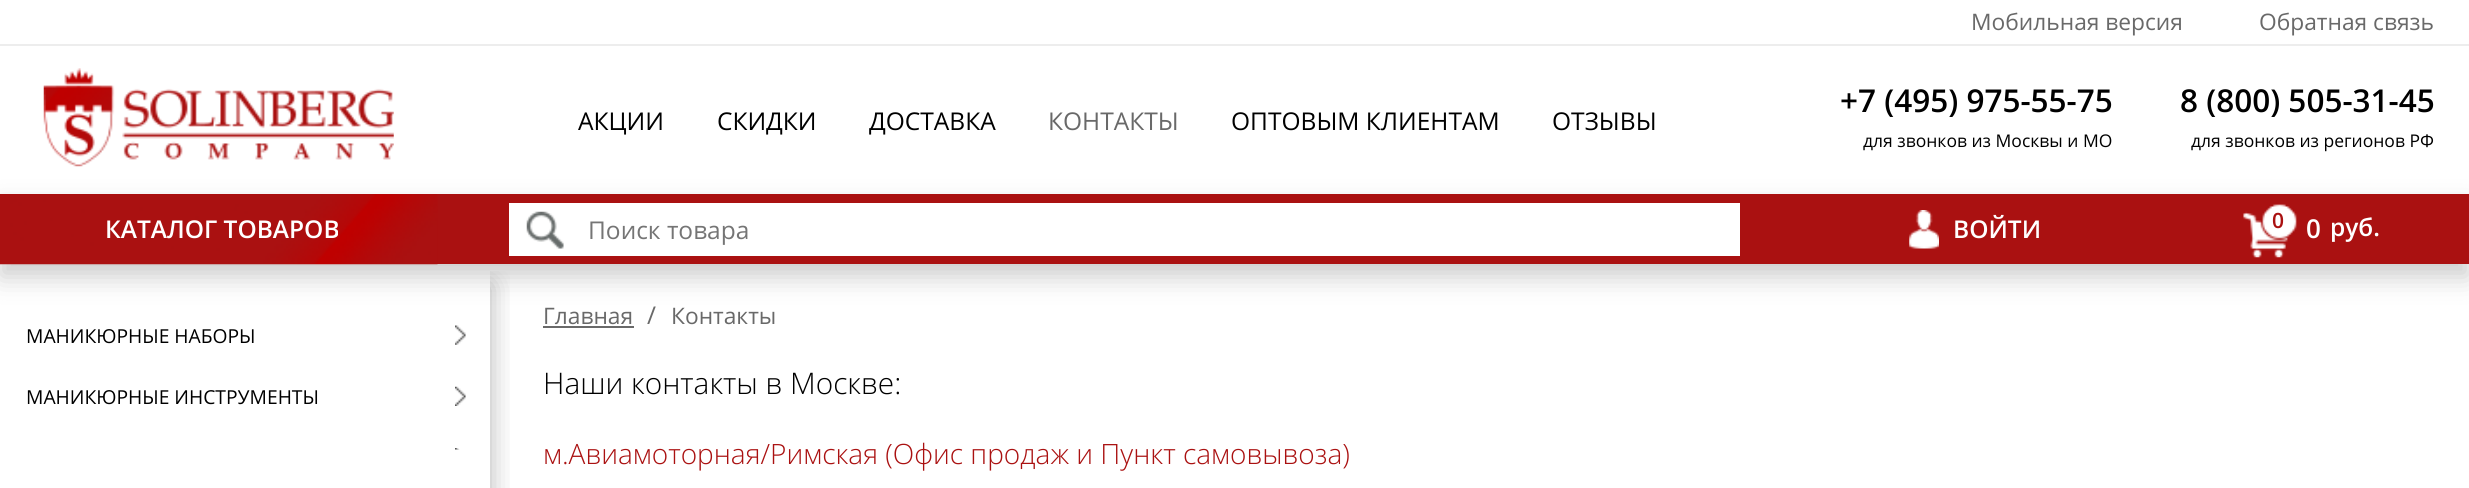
#include <cairo.h>
#include <math.h>
#include <stddef.h>

static cairo_t *ctx;

static void use_color(int r, int g, int b) {
    cairo_set_source_rgb(ctx, r / 255.0, g / 255.0, b / 255.0);
}

static void round_rect(double x, double y, double w, double h, double r) {
    cairo_new_sub_path(ctx);
    cairo_arc(ctx, x + w - r, y + h - r, r, 0, M_PI / 2);
    cairo_arc(ctx, x + r, y + h - r, r, M_PI / 2, M_PI);
    cairo_arc(ctx, x + r, y + r, r, M_PI, 1.5 * M_PI);
    cairo_arc(ctx, x + w - r, y + r, r, 1.5 * M_PI, 2 * M_PI);
    cairo_close_path(ctx);
}

static void shadow(double x, double y, double w, double h, double r, double blur, double alpha) {
    cairo_push_group_with_content(ctx, CAIRO_CONTENT_ALPHA);
    cairo_set_operator(ctx, CAIRO_OPERATOR_SOURCE);
    for (int i = 15; i >= -15 && fmin(w, h) + blur * i / 3 > 0; i -= 2) {
        double e = blur * i / 6;
        cairo_set_source_rgba(ctx, 0, 0, 0, alpha * erfc((i - 1) / 8.5) / 2);
        round_rect(x - e, y - e, w + 2 * e, h + 2 * e, fmax(0, fmin(r + e + blur * .6, fmin(w, h) / 2 + e)));
        cairo_fill(ctx);
    }
    cairo_pattern_t *soft = cairo_pop_group(ctx);
    cairo_mask(ctx, soft);
    cairo_pattern_destroy(soft);
}

static void picture(const char *path, double x, double y, double w, double h) {
    cairo_surface_t *image = cairo_image_surface_create_from_png(path);
    cairo_save(ctx);
    cairo_set_source_surface(ctx, image, x, y);
    cairo_rectangle(ctx, x, y, w, h);
    cairo_fill(ctx);
    cairo_restore(ctx);
    cairo_surface_destroy(image);
}

int main(void) {
    cairo_surface_t *surface = cairo_image_surface_create(CAIRO_FORMAT_RGB24, 2469, 488);
    ctx = cairo_create(surface);
    cairo_font_options_t *options = cairo_font_options_create();
    cairo_font_options_set_hint_metrics(options, CAIRO_HINT_METRICS_OFF);
    cairo_font_options_set_hint_style(options, CAIRO_HINT_STYLE_NONE);
    cairo_set_font_options(ctx, options);
    cairo_set_miter_limit(ctx, 4);
    use_color(255, 255, 255);
    cairo_paint(ctx);
    use_color(237, 237, 237);
    cairo_rectangle(ctx, 0, 44, 2469, 2);
    cairo_fill(ctx);
    cairo_select_font_face(ctx, "Open Sans", CAIRO_FONT_SLANT_NORMAL, CAIRO_FONT_WEIGHT_NORMAL);
    cairo_set_font_size(ctx, 22.75);
    use_color(105, 105, 105);
    cairo_move_to(ctx, 1971, 30);
    cairo_show_text(ctx, "Мобильная версия");
    cairo_move_to(ctx, 2259, 30);
    cairo_show_text(ctx, "Обратная связь");
    picture("img1.png", 43, 68, 351, 99);
    cairo_set_font_size(ctx, 24.5);
    use_color(0, 0, 0);
    cairo_move_to(ctx, 578, 130);
    cairo_show_text(ctx, "АКЦИИ");
    cairo_move_to(ctx, 717, 130);
    cairo_show_text(ctx, "СКИДКИ");
    cairo_move_to(ctx, 869, 130);
    cairo_show_text(ctx, "ДОСТАВКА");
    use_color(105, 105, 105);
    cairo_move_to(ctx, 1048, 130);
    cairo_show_text(ctx, "КОНТАКТЫ");
    use_color(0, 0, 0);
    cairo_move_to(ctx, 1231, 130);
    cairo_show_text(ctx, "ОПТОВЫМ КЛИЕНТАМ");
    cairo_move_to(ctx, 1552, 130);
    cairo_show_text(ctx, "ОТЗЫВЫ");
    cairo_select_font_face(ctx, "Open Sans SemiBold", CAIRO_FONT_SLANT_NORMAL, CAIRO_FONT_WEIGHT_NORMAL);
    cairo_set_font_size(ctx, 31.5);
    cairo_move_to(ctx, 1840, 112);
    cairo_show_text(ctx, "+7 (495) 975-55-75");
    cairo_select_font_face(ctx, "Open Sans", CAIRO_FONT_SLANT_NORMAL, CAIRO_FONT_WEIGHT_NORMAL);
    cairo_set_font_size(ctx, 17.5);
    cairo_move_to(ctx, 1863, 147);
    cairo_show_text(ctx, "для звонков из Москвы и МО");
    cairo_select_font_face(ctx, "Open Sans SemiBold", CAIRO_FONT_SLANT_NORMAL, CAIRO_FONT_WEIGHT_NORMAL);
    cairo_set_font_size(ctx, 31.5);
    cairo_move_to(ctx, 2180, 112);
    cairo_show_text(ctx, "8 (800) 505-31-45");
    cairo_select_font_face(ctx, "Open Sans", CAIRO_FONT_SLANT_NORMAL, CAIRO_FONT_WEIGHT_NORMAL);
    cairo_set_font_size(ctx, 17.5);
    cairo_move_to(ctx, 2191, 147);
    cairo_show_text(ctx, "для звонков из регионов РФ");
    use_color(0, 0, 0);
    shadow(0, 207, 2469, 70, 0, 13, 0.2);
    use_color(170, 17, 17);
    cairo_rectangle(ctx, 0, 194, 2469, 70);
    cairo_fill(ctx);
    picture("img2.png", 0, 194, 438, 71);
    cairo_select_font_face(ctx, "Open Sans SemiBold", CAIRO_FONT_SLANT_NORMAL, CAIRO_FONT_WEIGHT_NORMAL);
    cairo_set_font_size(ctx, 24.5);
    use_color(255, 255, 255);
    cairo_move_to(ctx, 105, 238);
    cairo_show_text(ctx, "КАТАЛОГ ТОВАРОВ");
    cairo_rectangle(ctx, 509, 203, 1231, 53);
    cairo_fill(ctx);
    picture("img3.png", 526, 211, 38, 38);
    cairo_select_font_face(ctx, "Open Sans", CAIRO_FONT_SLANT_NORMAL, CAIRO_FONT_WEIGHT_NORMAL);
    use_color(117, 117, 117);
    cairo_move_to(ctx, 588, 239);
    cairo_show_text(ctx, "Поиск товара");
    picture("img4.png", 1909, 210, 30, 39);
    cairo_select_font_face(ctx, "Open Sans SemiBold", CAIRO_FONT_SLANT_NORMAL, CAIRO_FONT_WEIGHT_NORMAL);
    use_color(255, 255, 255);
    cairo_move_to(ctx, 1953, 238);
    cairo_show_text(ctx, "ВОЙТИ");
    picture("img5.png", 2243, 204, 54, 54);
    cairo_set_font_size(ctx, 21);
    use_color(170, 17, 17);
    cairo_move_to(ctx, 2272, 228);
    cairo_show_text(ctx, "0");
    cairo_set_font_size(ctx, 26);
    use_color(255, 255, 255);
    cairo_move_to(ctx, 2306, 238);
    cairo_show_text(ctx, "0");
    cairo_set_font_size(ctx, 24.5);
    cairo_move_to(ctx, 2330, 236);
    cairo_show_text(ctx, "руб.");
    cairo_save(ctx);
    cairo_rectangle(ctx, 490, 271, 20, 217);
    cairo_clip(ctx);
    use_color(0, 0, 0);
    shadow(0, 285, 490, 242, 0, 13, 0.3);
    cairo_restore(ctx);
    picture("img6.png", 455, 325, 11, 20);
    cairo_select_font_face(ctx, "Open Sans", CAIRO_FONT_SLANT_NORMAL, CAIRO_FONT_WEIGHT_NORMAL);
    cairo_set_font_size(ctx, 19.25);
    use_color(0, 0, 0);
    cairo_move_to(ctx, 26, 343);
    cairo_show_text(ctx, "МАНИКЮРНЫЕ НАБОРЫ");
    picture("img7.png", 455, 386, 11, 20);
    cairo_move_to(ctx, 26, 404);
    cairo_show_text(ctx, "МАНИКЮРНЫЕ ИНСТРУМЕНТЫ");
    picture("img8.png", 455, 448, 5, 2);
    cairo_set_font_size(ctx, 22.75);
    use_color(105, 105, 105);
    cairo_move_to(ctx, 543, 324);
    cairo_show_text(ctx, "Главная");
    cairo_rectangle(ctx, 543, 326, 91, 2);
    cairo_fill(ctx);
    cairo_set_font_size(ctx, 24.5);
    cairo_move_to(ctx, 647, 324);
    cairo_show_text(ctx, "/");
    cairo_set_font_size(ctx, 22.75);
    cairo_move_to(ctx, 671, 324);
    cairo_show_text(ctx, "Контакты");
    cairo_select_font_face(ctx, "Open Sans Light", CAIRO_FONT_SLANT_NORMAL, CAIRO_FONT_WEIGHT_NORMAL);
    cairo_set_font_size(ctx, 29.75);
    use_color(0, 0, 0);
    cairo_move_to(ctx, 543, 394);
    cairo_show_text(ctx, "Наши контакты в Москве:");
    cairo_set_font_size(ctx, 28);
    use_color(170, 17, 17);
    cairo_move_to(ctx, 543, 464);
    cairo_show_text(ctx, "м.Авиамоторная/Римская (Офис продаж и Пункт самовывоза)");
    cairo_surface_write_to_png(surface, "result.png");
    cairo_font_options_destroy(options);
    cairo_destroy(ctx);
    cairo_surface_destroy(surface);
    return 0;
}
